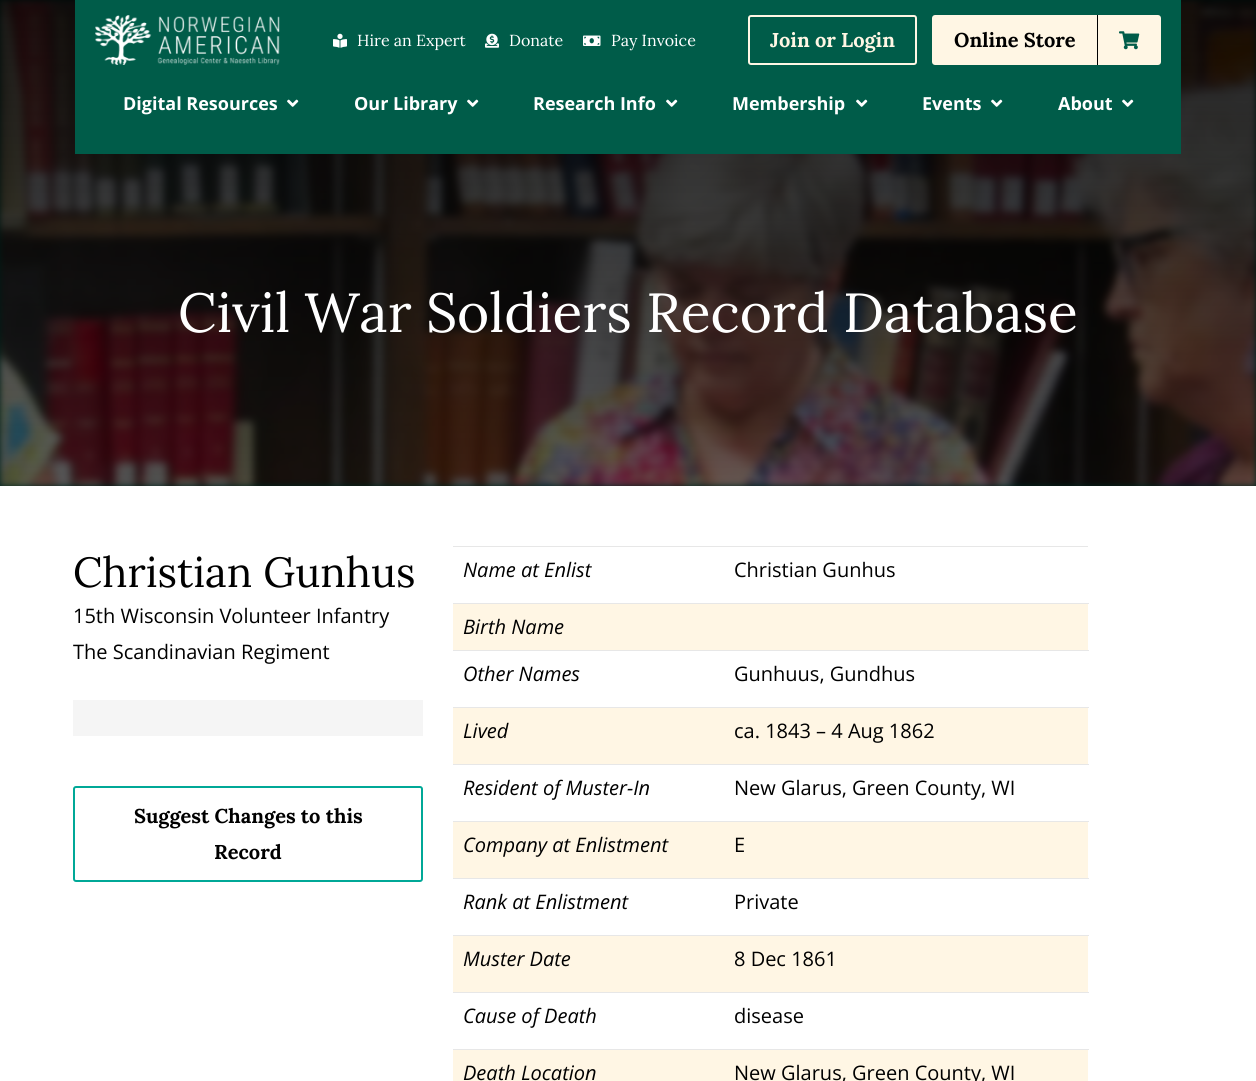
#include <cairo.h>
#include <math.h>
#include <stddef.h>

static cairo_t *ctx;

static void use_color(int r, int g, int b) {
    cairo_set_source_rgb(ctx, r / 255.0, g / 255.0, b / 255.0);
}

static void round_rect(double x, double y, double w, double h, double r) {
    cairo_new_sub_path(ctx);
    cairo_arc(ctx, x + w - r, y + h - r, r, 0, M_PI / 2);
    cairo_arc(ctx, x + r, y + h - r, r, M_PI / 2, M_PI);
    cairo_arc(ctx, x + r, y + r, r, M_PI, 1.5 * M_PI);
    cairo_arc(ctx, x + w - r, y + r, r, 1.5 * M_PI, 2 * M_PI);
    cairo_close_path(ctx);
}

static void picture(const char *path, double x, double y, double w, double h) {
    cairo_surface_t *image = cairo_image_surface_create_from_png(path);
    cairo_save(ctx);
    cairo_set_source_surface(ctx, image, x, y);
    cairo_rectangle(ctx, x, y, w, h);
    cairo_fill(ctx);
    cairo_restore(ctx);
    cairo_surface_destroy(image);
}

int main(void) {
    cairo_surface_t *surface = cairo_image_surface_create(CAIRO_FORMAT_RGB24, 1256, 1081);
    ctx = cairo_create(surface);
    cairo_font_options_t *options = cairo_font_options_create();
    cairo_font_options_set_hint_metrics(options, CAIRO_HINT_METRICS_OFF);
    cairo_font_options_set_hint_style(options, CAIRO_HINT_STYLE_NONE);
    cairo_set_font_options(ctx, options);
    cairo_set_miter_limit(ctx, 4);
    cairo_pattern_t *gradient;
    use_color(255, 255, 255);
    cairo_paint(ctx);
    use_color(0, 92, 73);
    cairo_rectangle(ctx, 0, 0, 1256, 486);
    cairo_fill(ctx);
    picture("img7.png", 0, 0, 1256, 486);
    gradient = cairo_pattern_create_linear(628, 486, 628, 0);
    cairo_pattern_add_color_stop_rgba(gradient, 0, 0, 0, 0, 0.6);
    cairo_pattern_add_color_stop_rgba(gradient, 1, 0, 0, 0, 0.87);
    cairo_set_source(ctx, gradient);
    cairo_pattern_destroy(gradient);
    cairo_rectangle(ctx, 0, 0, 1256, 486);
    cairo_fill(ctx);
    use_color(0, 92, 73);
    cairo_rectangle(ctx, 75, 0, 1106, 154);
    cairo_fill(ctx);
    picture("img1.png", 95, 15, 185, 50);
    picture("img2.png", 333, 33, 14, 15);
    cairo_select_font_face(ctx, "Lora", CAIRO_FONT_SLANT_NORMAL, CAIRO_FONT_WEIGHT_NORMAL);
    cairo_set_font_size(ctx, 16);
    use_color(255, 255, 255);
    cairo_move_to(ctx, 357, 46);
    cairo_show_text(ctx, "Hire an Expert");
    picture("img3.png", 485, 33, 14, 15);
    cairo_move_to(ctx, 509, 46);
    cairo_show_text(ctx, "Donate");
    picture("img4.png", 583, 35, 18, 11);
    cairo_move_to(ctx, 611, 46);
    cairo_show_text(ctx, "Pay Invoice");
    round_rect(749, 16, 167, 48, 2);
    use_color(255, 246, 228);
    cairo_stroke(ctx);
    cairo_select_font_face(ctx, "Lora", CAIRO_FONT_SLANT_NORMAL, CAIRO_FONT_WEIGHT_BOLD);
    cairo_set_font_size(ctx, 20);
    cairo_move_to(ctx, 770, 47);
    cairo_show_text(ctx, "Join or Login");
    cairo_new_path(ctx);
    cairo_move_to(ctx, 935, 16);
    cairo_line_to(ctx, 1097, 16);
    cairo_line_to(ctx, 1097, 64);
    cairo_line_to(ctx, 935, 64);
    cairo_curve_to(ctx, 934, 64, 933, 63, 933, 62);
    cairo_line_to(ctx, 933, 18);
    cairo_curve_to(ctx, 933, 17, 934, 16, 935, 16);
    cairo_close_path(ctx);
    cairo_fill_preserve(ctx);
    cairo_stroke(ctx);
    cairo_new_path(ctx);
    cairo_move_to(ctx, 1098, 16);
    cairo_line_to(ctx, 1158, 16);
    cairo_curve_to(ctx, 1159, 16, 1160, 17, 1160, 18);
    cairo_line_to(ctx, 1160, 62);
    cairo_curve_to(ctx, 1160, 63, 1159, 64, 1158, 64);
    cairo_line_to(ctx, 1098, 64);
    cairo_close_path(ctx);
    cairo_fill_preserve(ctx);
    cairo_stroke(ctx);
    picture("img5.png", 1119, 31, 21, 19);
    use_color(0, 0, 0);
    cairo_move_to(ctx, 954, 47);
    cairo_show_text(ctx, "Online Store");
    cairo_rectangle(ctx, 1097, 15, 1, 50);
    cairo_fill(ctx);
    cairo_select_font_face(ctx, "Open Sans", CAIRO_FONT_SLANT_NORMAL, CAIRO_FONT_WEIGHT_BOLD);
    cairo_set_font_size(ctx, 18);
    use_color(255, 255, 255);
    cairo_move_to(ctx, 123, 110);
    cairo_show_text(ctx, "Digital Resources");
    picture("img6.png", 287, 99, 12, 8);
    cairo_move_to(ctx, 354, 110);
    cairo_show_text(ctx, "Our Library");
    picture("img6.png", 467, 99, 12, 8);
    cairo_move_to(ctx, 533, 110);
    cairo_show_text(ctx, "Research Info");
    picture("img6.png", 666, 99, 12, 8);
    cairo_move_to(ctx, 732, 110);
    cairo_show_text(ctx, "Membership");
    picture("img6.png", 856, 99, 12, 8);
    cairo_move_to(ctx, 922, 110);
    cairo_show_text(ctx, "Events");
    picture("img6.png", 991, 99, 12, 8);
    cairo_move_to(ctx, 1058, 110);
    cairo_show_text(ctx, "About");
    picture("img6.png", 1122, 99, 12, 8);
    cairo_select_font_face(ctx, "Lora", CAIRO_FONT_SLANT_NORMAL, CAIRO_FONT_WEIGHT_NORMAL);
    cairo_set_font_size(ctx, 55);
    cairo_move_to(ctx, 178, 332);
    cairo_show_text(ctx, "Civil War Soldiers Record Database");
    cairo_set_font_size(ctx, 42);
    use_color(0, 0, 0);
    cairo_move_to(ctx, 73, 587);
    cairo_show_text(ctx, "Christian Gunhus");
    cairo_select_font_face(ctx, "Open Sans", CAIRO_FONT_SLANT_NORMAL, CAIRO_FONT_WEIGHT_NORMAL);
    cairo_set_font_size(ctx, 20);
    cairo_move_to(ctx, 73, 623);
    cairo_show_text(ctx, "15th Wisconsin Volunteer Infantry");
    cairo_move_to(ctx, 73, 659);
    cairo_show_text(ctx, "The Scandinavian Regiment");
    use_color(245, 245, 245);
    cairo_rectangle(ctx, 73, 700, 350, 36);
    cairo_fill(ctx);
    round_rect(74, 787, 348, 94, 2);
    use_color(0, 168, 151);
    cairo_stroke(ctx);
    cairo_select_font_face(ctx, "Lora", CAIRO_FONT_SLANT_NORMAL, CAIRO_FONT_WEIGHT_BOLD);
    use_color(0, 0, 0);
    cairo_move_to(ctx, 134, 823);
    cairo_show_text(ctx, "Suggest Changes to this");
    cairo_move_to(ctx, 214, 859);
    cairo_show_text(ctx, "Record");
    use_color(231, 231, 231);
    cairo_rectangle(ctx, 453, 546, 635, 1);
    cairo_fill(ctx);
    cairo_select_font_face(ctx, "Open Sans", CAIRO_FONT_SLANT_ITALIC, CAIRO_FONT_WEIGHT_NORMAL);
    use_color(0, 0, 0);
    cairo_move_to(ctx, 463, 577);
    cairo_show_text(ctx, "Name at Enlist");
    use_color(231, 231, 231);
    cairo_rectangle(ctx, 453, 603, 636, 1);
    cairo_fill(ctx);
    cairo_select_font_face(ctx, "Open Sans", CAIRO_FONT_SLANT_NORMAL, CAIRO_FONT_WEIGHT_NORMAL);
    use_color(0, 0, 0);
    cairo_move_to(ctx, 734, 577);
    cairo_show_text(ctx, "Christian Gunhus");
    use_color(255, 246, 228);
    cairo_rectangle(ctx, 453, 604, 635, 46);
    cairo_fill(ctx);
    cairo_select_font_face(ctx, "Open Sans", CAIRO_FONT_SLANT_ITALIC, CAIRO_FONT_WEIGHT_NORMAL);
    use_color(0, 0, 0);
    cairo_move_to(ctx, 463, 634);
    cairo_show_text(ctx, "Birth Name");
    use_color(231, 231, 231);
    cairo_rectangle(ctx, 453, 650, 636, 1);
    cairo_fill(ctx);
    use_color(0, 0, 0);
    cairo_move_to(ctx, 463, 681);
    cairo_show_text(ctx, "Other Names");
    use_color(231, 231, 231);
    cairo_rectangle(ctx, 453, 707, 636, 1);
    cairo_fill(ctx);
    cairo_select_font_face(ctx, "Open Sans", CAIRO_FONT_SLANT_NORMAL, CAIRO_FONT_WEIGHT_NORMAL);
    use_color(0, 0, 0);
    cairo_move_to(ctx, 734, 681);
    cairo_show_text(ctx, "Gunhuus, Gundhus");
    use_color(255, 246, 228);
    cairo_rectangle(ctx, 453, 708, 635, 56);
    cairo_fill(ctx);
    cairo_select_font_face(ctx, "Open Sans", CAIRO_FONT_SLANT_ITALIC, CAIRO_FONT_WEIGHT_NORMAL);
    use_color(0, 0, 0);
    cairo_move_to(ctx, 463, 738);
    cairo_show_text(ctx, "Lived");
    use_color(231, 231, 231);
    cairo_rectangle(ctx, 453, 764, 636, 1);
    cairo_fill(ctx);
    cairo_select_font_face(ctx, "Open Sans", CAIRO_FONT_SLANT_NORMAL, CAIRO_FONT_WEIGHT_NORMAL);
    use_color(0, 0, 0);
    cairo_move_to(ctx, 734, 738);
    cairo_show_text(ctx, "ca. 1843 – 4 Aug 1862");
    cairo_select_font_face(ctx, "Open Sans", CAIRO_FONT_SLANT_ITALIC, CAIRO_FONT_WEIGHT_NORMAL);
    cairo_move_to(ctx, 463, 795);
    cairo_show_text(ctx, "Resident of Muster-In");
    use_color(231, 231, 231);
    cairo_rectangle(ctx, 453, 821, 636, 1);
    cairo_fill(ctx);
    cairo_select_font_face(ctx, "Open Sans", CAIRO_FONT_SLANT_NORMAL, CAIRO_FONT_WEIGHT_NORMAL);
    use_color(0, 0, 0);
    cairo_move_to(ctx, 734, 795);
    cairo_show_text(ctx, "New Glarus, Green County, WI");
    use_color(255, 246, 228);
    cairo_rectangle(ctx, 453, 822, 635, 56);
    cairo_fill(ctx);
    cairo_select_font_face(ctx, "Open Sans", CAIRO_FONT_SLANT_ITALIC, CAIRO_FONT_WEIGHT_NORMAL);
    use_color(0, 0, 0);
    cairo_move_to(ctx, 463, 852);
    cairo_show_text(ctx, "Company at Enlistment");
    use_color(231, 231, 231);
    cairo_rectangle(ctx, 453, 878, 636, 1);
    cairo_fill(ctx);
    cairo_select_font_face(ctx, "Open Sans", CAIRO_FONT_SLANT_NORMAL, CAIRO_FONT_WEIGHT_NORMAL);
    use_color(0, 0, 0);
    cairo_move_to(ctx, 734, 852);
    cairo_show_text(ctx, "E");
    cairo_select_font_face(ctx, "Open Sans", CAIRO_FONT_SLANT_ITALIC, CAIRO_FONT_WEIGHT_NORMAL);
    cairo_move_to(ctx, 463, 909);
    cairo_show_text(ctx, "Rank at Enlistment");
    use_color(231, 231, 231);
    cairo_rectangle(ctx, 453, 935, 636, 1);
    cairo_fill(ctx);
    cairo_select_font_face(ctx, "Open Sans", CAIRO_FONT_SLANT_NORMAL, CAIRO_FONT_WEIGHT_NORMAL);
    use_color(0, 0, 0);
    cairo_move_to(ctx, 734, 909);
    cairo_show_text(ctx, "Private");
    use_color(255, 246, 228);
    cairo_rectangle(ctx, 453, 936, 635, 56);
    cairo_fill(ctx);
    cairo_select_font_face(ctx, "Open Sans", CAIRO_FONT_SLANT_ITALIC, CAIRO_FONT_WEIGHT_NORMAL);
    use_color(0, 0, 0);
    cairo_move_to(ctx, 463, 966);
    cairo_show_text(ctx, "Muster Date");
    use_color(231, 231, 231);
    cairo_rectangle(ctx, 453, 992, 636, 1);
    cairo_fill(ctx);
    cairo_select_font_face(ctx, "Open Sans", CAIRO_FONT_SLANT_NORMAL, CAIRO_FONT_WEIGHT_NORMAL);
    use_color(0, 0, 0);
    cairo_move_to(ctx, 734, 966);
    cairo_show_text(ctx, "8 Dec 1861");
    cairo_select_font_face(ctx, "Open Sans", CAIRO_FONT_SLANT_ITALIC, CAIRO_FONT_WEIGHT_NORMAL);
    cairo_move_to(ctx, 463, 1023);
    cairo_show_text(ctx, "Cause of Death");
    use_color(231, 231, 231);
    cairo_rectangle(ctx, 453, 1049, 636, 1);
    cairo_fill(ctx);
    cairo_select_font_face(ctx, "Open Sans", CAIRO_FONT_SLANT_NORMAL, CAIRO_FONT_WEIGHT_NORMAL);
    use_color(0, 0, 0);
    cairo_move_to(ctx, 734, 1023);
    cairo_show_text(ctx, "disease");
    use_color(255, 246, 228);
    cairo_rectangle(ctx, 453, 1050, 635, 31);
    cairo_fill(ctx);
    cairo_select_font_face(ctx, "Open Sans", CAIRO_FONT_SLANT_ITALIC, CAIRO_FONT_WEIGHT_NORMAL);
    use_color(0, 0, 0);
    cairo_move_to(ctx, 463, 1080);
    cairo_show_text(ctx, "Death Location");
    cairo_select_font_face(ctx, "Open Sans", CAIRO_FONT_SLANT_NORMAL, CAIRO_FONT_WEIGHT_NORMAL);
    cairo_move_to(ctx, 734, 1080);
    cairo_show_text(ctx, "New Glarus, Green County, WI");
    cairo_surface_write_to_png(surface, "result.png");
    cairo_font_options_destroy(options);
    cairo_destroy(ctx);
    cairo_surface_destroy(surface);
    return 0;
}
